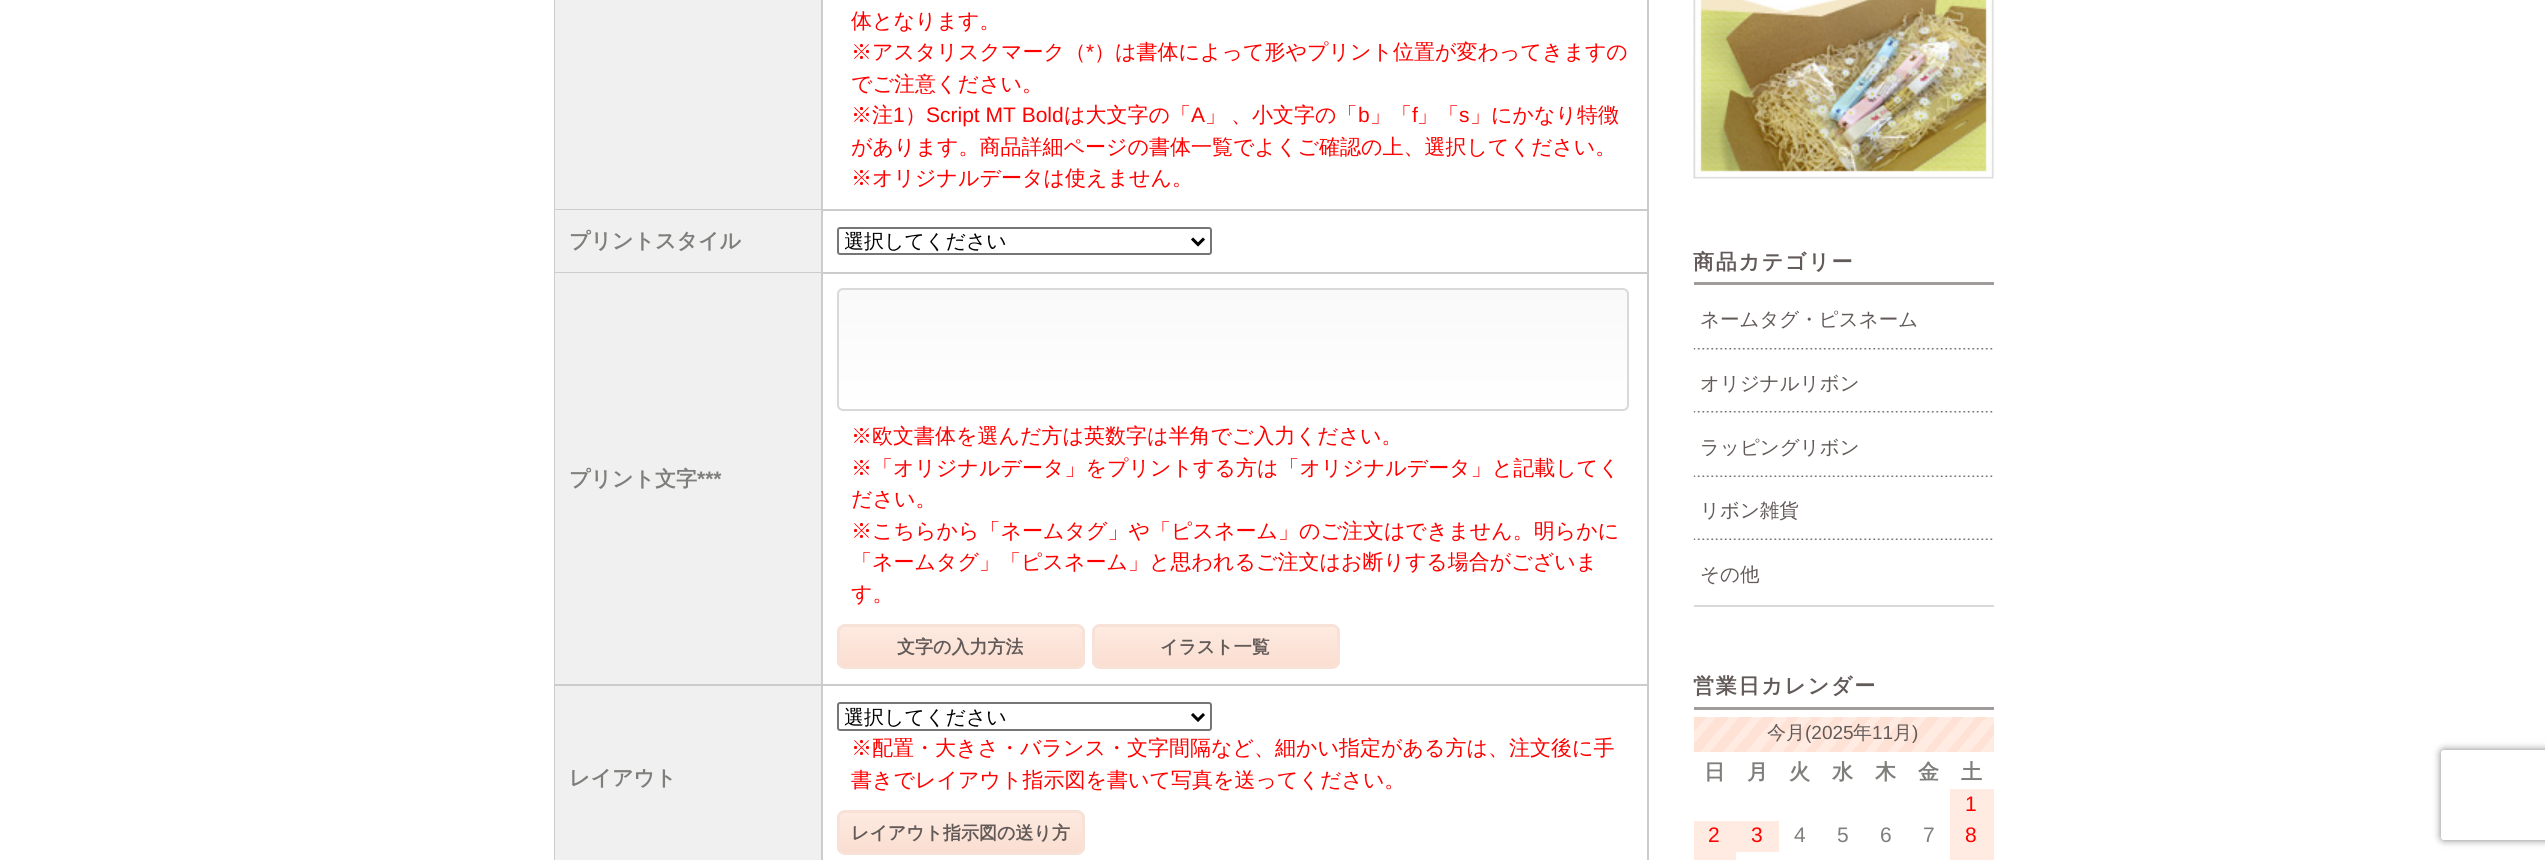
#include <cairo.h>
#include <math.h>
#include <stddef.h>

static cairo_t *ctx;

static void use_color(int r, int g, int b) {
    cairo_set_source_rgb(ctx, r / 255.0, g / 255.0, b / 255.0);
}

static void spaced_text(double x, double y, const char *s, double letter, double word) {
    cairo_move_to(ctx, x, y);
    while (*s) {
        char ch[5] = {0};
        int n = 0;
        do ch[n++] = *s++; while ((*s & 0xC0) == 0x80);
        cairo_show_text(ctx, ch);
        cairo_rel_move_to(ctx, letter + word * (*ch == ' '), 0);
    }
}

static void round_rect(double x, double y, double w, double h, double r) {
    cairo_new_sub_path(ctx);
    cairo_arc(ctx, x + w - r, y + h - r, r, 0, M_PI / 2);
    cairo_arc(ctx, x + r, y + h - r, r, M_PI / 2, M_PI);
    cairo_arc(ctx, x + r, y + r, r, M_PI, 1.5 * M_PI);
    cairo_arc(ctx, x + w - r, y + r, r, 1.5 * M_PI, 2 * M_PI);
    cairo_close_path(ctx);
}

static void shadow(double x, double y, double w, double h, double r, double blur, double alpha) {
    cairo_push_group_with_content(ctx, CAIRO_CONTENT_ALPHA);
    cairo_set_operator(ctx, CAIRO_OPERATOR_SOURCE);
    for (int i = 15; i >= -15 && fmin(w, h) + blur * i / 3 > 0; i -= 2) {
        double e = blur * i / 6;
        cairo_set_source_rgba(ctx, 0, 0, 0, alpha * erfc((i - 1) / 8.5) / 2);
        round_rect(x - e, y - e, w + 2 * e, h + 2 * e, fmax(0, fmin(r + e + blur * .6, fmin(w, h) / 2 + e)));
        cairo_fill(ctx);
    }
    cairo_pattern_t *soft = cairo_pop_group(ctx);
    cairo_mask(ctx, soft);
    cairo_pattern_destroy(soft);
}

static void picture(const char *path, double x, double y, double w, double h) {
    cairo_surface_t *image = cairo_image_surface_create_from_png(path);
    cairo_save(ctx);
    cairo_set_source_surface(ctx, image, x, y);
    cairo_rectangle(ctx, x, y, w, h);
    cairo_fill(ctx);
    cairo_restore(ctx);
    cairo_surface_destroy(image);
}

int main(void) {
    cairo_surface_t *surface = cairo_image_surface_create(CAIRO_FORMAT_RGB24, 2545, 860);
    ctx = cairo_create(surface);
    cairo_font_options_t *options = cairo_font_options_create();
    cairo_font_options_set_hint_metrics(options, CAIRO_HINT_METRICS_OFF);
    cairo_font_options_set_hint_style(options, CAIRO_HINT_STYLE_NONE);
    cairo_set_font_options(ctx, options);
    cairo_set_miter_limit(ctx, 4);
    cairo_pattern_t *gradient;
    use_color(255, 255, 255);
    cairo_paint(ctx);
    use_color(204, 204, 204);
    cairo_rectangle(ctx, 554, 0, 1, 860);
    cairo_fill(ctx);
    use_color(240, 240, 240);
    cairo_rectangle(ctx, 555, 0, 266, 209);
    cairo_fill(ctx);
    use_color(204, 204, 204);
    cairo_rectangle(ctx, 821, 0, 2, 210);
    cairo_fill(ctx);
    cairo_rectangle(ctx, 555, 209, 267, 1);
    cairo_fill(ctx);
    cairo_rectangle(ctx, 1647, 0, 2, 210);
    cairo_fill(ctx);
    cairo_rectangle(ctx, 822, 209, 827, 2);
    cairo_fill(ctx);
    cairo_select_font_face(ctx, "WenQuanYi Zen Hei Medium", CAIRO_FONT_SLANT_NORMAL, CAIRO_FONT_WEIGHT_NORMAL);
    cairo_set_font_size(ctx, 21);
    use_color(255, 0, 0);
    cairo_move_to(ctx, 851, 28);
    cairo_show_text(ctx, "体となります。");
    cairo_move_to(ctx, 851, 59);
    cairo_show_text(ctx, "※アスタリスクマーク（");
    cairo_select_font_face(ctx, "Liberation Sans", CAIRO_FONT_SLANT_NORMAL, CAIRO_FONT_WEIGHT_NORMAL);
    cairo_move_to(ctx, 1086, 59);
    cairo_show_text(ctx, "*");
    cairo_select_font_face(ctx, "WenQuanYi Zen Hei Medium", CAIRO_FONT_SLANT_NORMAL, CAIRO_FONT_WEIGHT_NORMAL);
    cairo_move_to(ctx, 1094, 59);
    cairo_show_text(ctx, "）は書体によって形やプリント位置が変わってきますの");
    cairo_move_to(ctx, 851, 91);
    cairo_show_text(ctx, "でご注意ください。");
    cairo_move_to(ctx, 851, 122);
    cairo_show_text(ctx, "※注");
    cairo_select_font_face(ctx, "Liberation Sans", CAIRO_FONT_SLANT_NORMAL, CAIRO_FONT_WEIGHT_NORMAL);
    cairo_move_to(ctx, 893, 122);
    cairo_show_text(ctx, "1");
    cairo_select_font_face(ctx, "WenQuanYi Zen Hei Medium", CAIRO_FONT_SLANT_NORMAL, CAIRO_FONT_WEIGHT_NORMAL);
    cairo_move_to(ctx, 905, 122);
    cairo_show_text(ctx, "）");
    cairo_select_font_face(ctx, "Liberation Sans", CAIRO_FONT_SLANT_NORMAL, CAIRO_FONT_WEIGHT_NORMAL);
    cairo_move_to(ctx, 926, 122);
    cairo_show_text(ctx, "Script MT Bold");
    cairo_select_font_face(ctx, "WenQuanYi Zen Hei Medium", CAIRO_FONT_SLANT_NORMAL, CAIRO_FONT_WEIGHT_NORMAL);
    cairo_move_to(ctx, 1064, 122);
    cairo_show_text(ctx, "は大文字の「");
    cairo_select_font_face(ctx, "Liberation Sans", CAIRO_FONT_SLANT_NORMAL, CAIRO_FONT_WEIGHT_NORMAL);
    cairo_move_to(ctx, 1191, 122);
    cairo_show_text(ctx, "A");
    cairo_select_font_face(ctx, "WenQuanYi Zen Hei Medium", CAIRO_FONT_SLANT_NORMAL, CAIRO_FONT_WEIGHT_NORMAL);
    cairo_move_to(ctx, 1205, 122);
    cairo_show_text(ctx, "」");
    cairo_move_to(ctx, 1231, 122);
    cairo_show_text(ctx, "、小文字の「");
    cairo_select_font_face(ctx, "Liberation Sans", CAIRO_FONT_SLANT_NORMAL, CAIRO_FONT_WEIGHT_NORMAL);
    cairo_move_to(ctx, 1358, 122);
    cairo_show_text(ctx, "b");
    cairo_select_font_face(ctx, "WenQuanYi Zen Hei Medium", CAIRO_FONT_SLANT_NORMAL, CAIRO_FONT_WEIGHT_NORMAL);
    cairo_move_to(ctx, 1370, 122);
    cairo_show_text(ctx, "」「");
    cairo_select_font_face(ctx, "Liberation Sans", CAIRO_FONT_SLANT_NORMAL, CAIRO_FONT_WEIGHT_NORMAL);
    cairo_move_to(ctx, 1412, 122);
    cairo_show_text(ctx, "f");
    cairo_select_font_face(ctx, "WenQuanYi Zen Hei Medium", CAIRO_FONT_SLANT_NORMAL, CAIRO_FONT_WEIGHT_NORMAL);
    cairo_move_to(ctx, 1417, 122);
    cairo_show_text(ctx, "」「");
    cairo_select_font_face(ctx, "Liberation Sans", CAIRO_FONT_SLANT_NORMAL, CAIRO_FONT_WEIGHT_NORMAL);
    cairo_move_to(ctx, 1459, 122);
    cairo_show_text(ctx, "s");
    cairo_select_font_face(ctx, "WenQuanYi Zen Hei Medium", CAIRO_FONT_SLANT_NORMAL, CAIRO_FONT_WEIGHT_NORMAL);
    cairo_move_to(ctx, 1470, 122);
    cairo_show_text(ctx, "」にかなり特徴");
    cairo_move_to(ctx, 851, 154);
    cairo_show_text(ctx, "があります。商品詳細ページの書体一覧でよくご確認の上、選択してください。");
    cairo_move_to(ctx, 851, 185);
    cairo_show_text(ctx, "※オリジナルデータは使えません。");
    use_color(240, 240, 240);
    cairo_rectangle(ctx, 555, 210, 266, 62);
    cairo_fill(ctx);
    use_color(204, 204, 204);
    cairo_rectangle(ctx, 821, 210, 2, 63);
    cairo_fill(ctx);
    cairo_rectangle(ctx, 555, 272, 267, 1);
    cairo_fill(ctx);
    cairo_select_font_face(ctx, "WenQuanYi Zen Hei", CAIRO_FONT_SLANT_NORMAL, CAIRO_FONT_WEIGHT_BOLD);
    use_color(126, 126, 123);
    cairo_move_to(ctx, 569, 248);
    cairo_show_text(ctx, "プリントスタイル");
    use_color(204, 204, 204);
    cairo_rectangle(ctx, 1647, 210, 2, 63);
    cairo_fill(ctx);
    cairo_rectangle(ctx, 822, 272, 827, 2);
    cairo_fill(ctx);
    round_rect(838, 228, 373, 26, 2);
    use_color(118, 118, 118);
    cairo_stroke(ctx);
    cairo_new_path(ctx);
    cairo_move_to(ctx, 1192, 238.5);
    cairo_line_to(ctx, 1198, 244.5);
    cairo_line_to(ctx, 1204, 238.5);
    use_color(0, 0, 0);
    cairo_set_line_width(ctx, 3);
    cairo_stroke(ctx);
    cairo_save(ctx);
    cairo_rectangle(ctx, 845, 228, 342, 26);
    cairo_clip(ctx);
    cairo_select_font_face(ctx, "WenQuanYi Zen Hei Medium", CAIRO_FONT_SLANT_NORMAL, CAIRO_FONT_WEIGHT_NORMAL);
    cairo_set_font_size(ctx, 20);
    cairo_move_to(ctx, 844, 248);
    cairo_show_text(ctx, "選択してください");
    cairo_restore(ctx);
    use_color(240, 240, 240);
    cairo_rectangle(ctx, 555, 273, 266, 411);
    cairo_fill(ctx);
    use_color(204, 204, 204);
    cairo_rectangle(ctx, 821, 273, 2, 587);
    cairo_fill(ctx);
    cairo_rectangle(ctx, 555, 684, 267, 2);
    cairo_fill(ctx);
    use_color(126, 126, 123);
    cairo_move_to(ctx, 569, 486);
    cairo_show_text(ctx, "プリント文字");
    cairo_select_font_face(ctx, "Liberation Sans", CAIRO_FONT_SLANT_NORMAL, CAIRO_FONT_WEIGHT_BOLD);
    cairo_move_to(ctx, 697, 486);
    cairo_show_text(ctx, "***");
    use_color(204, 204, 204);
    cairo_rectangle(ctx, 1647, 273, 2, 587);
    cairo_fill(ctx);
    cairo_rectangle(ctx, 822, 684, 827, 2);
    cairo_fill(ctx);
    cairo_save(ctx);
    round_rect(837, 288, 792, 123, 6);
    cairo_clip(ctx);
    gradient = cairo_pattern_create_linear(839, 290, 839, 410);
    cairo_pattern_add_color_stop_rgba(gradient, 0, 0.976, 0.976, 0.976, 1);
    cairo_pattern_add_color_stop_rgba(gradient, 1, 1, 1, 1, 1);
    cairo_set_source(ctx, gradient);
    cairo_pattern_destroy(gradient);
    cairo_rectangle(ctx, 837, 290, 792, 120);
    cairo_fill(ctx);
    cairo_restore(ctx);
    round_rect(838, 289, 790, 121, 5);
    use_color(217, 217, 217);
    cairo_set_line_width(ctx, 2);
    cairo_stroke(ctx);
    cairo_select_font_face(ctx, "WenQuanYi Zen Hei Medium", CAIRO_FONT_SLANT_NORMAL, CAIRO_FONT_WEIGHT_NORMAL);
    use_color(255, 0, 0);
    cairo_move_to(ctx, 851, 443);
    cairo_show_text(ctx, "※欧文書体を選んだ方は英数字は半角でご入力ください。");
    cairo_move_to(ctx, 851, 475);
    cairo_show_text(ctx, "※「オリジナルデータ」をプリントする方は「オリジナルデータ」と記載してく");
    cairo_move_to(ctx, 851, 506);
    cairo_show_text(ctx, "ださい。");
    cairo_move_to(ctx, 851, 538);
    cairo_show_text(ctx, "※こちらから「ネームタグ」や「ピスネーム」のご注文はできません。明らかに");
    cairo_move_to(ctx, 851, 569);
    cairo_show_text(ctx, "「ネームタグ」「ピスネーム」と思われるご注文はお断りする場合がございま");
    cairo_move_to(ctx, 851, 601);
    cairo_show_text(ctx, "す。");
    cairo_save(ctx);
    round_rect(837, 624, 248, 45, 8);
    cairo_clip(ctx);
    gradient = cairo_pattern_create_linear(840, 627, 840, 666);
    cairo_pattern_add_color_stop_rgba(gradient, 0, 0.996, 0.918, 0.882, 1);
    cairo_pattern_add_color_stop_rgba(gradient, 1, 0.98, 0.871, 0.816, 1);
    cairo_set_source(ctx, gradient);
    cairo_pattern_destroy(gradient);
    cairo_rectangle(ctx, 837, 627, 248, 39);
    cairo_fill(ctx);
    cairo_restore(ctx);
    round_rect(838.5, 625.5, 245, 42, 6.5);
    use_color(248, 225, 214);
    cairo_set_line_width(ctx, 3);
    cairo_stroke(ctx);
    cairo_select_font_face(ctx, "WenQuanYi Zen Hei", CAIRO_FONT_SLANT_NORMAL, CAIRO_FONT_WEIGHT_BOLD);
    cairo_set_font_size(ctx, 18);
    use_color(98, 90, 88);
    cairo_move_to(ctx, 897, 653);
    cairo_show_text(ctx, "文字の入力方法");
    cairo_save(ctx);
    round_rect(1092, 624, 248, 45, 8);
    cairo_clip(ctx);
    gradient = cairo_pattern_create_linear(1095, 627, 1095, 666);
    cairo_pattern_add_color_stop_rgba(gradient, 0, 0.996, 0.918, 0.882, 1);
    cairo_pattern_add_color_stop_rgba(gradient, 1, 0.98, 0.871, 0.816, 1);
    cairo_set_source(ctx, gradient);
    cairo_pattern_destroy(gradient);
    cairo_rectangle(ctx, 1092, 627, 248, 39);
    cairo_fill(ctx);
    cairo_restore(ctx);
    round_rect(1093.5, 625.5, 245, 42, 6.5);
    use_color(248, 225, 214);
    cairo_stroke(ctx);
    use_color(98, 90, 88);
    cairo_move_to(ctx, 1160, 653);
    cairo_show_text(ctx, "イラスト一覧");
    use_color(240, 240, 240);
    cairo_rectangle(ctx, 555, 686, 266, 174);
    cairo_fill(ctx);
    cairo_set_font_size(ctx, 21);
    use_color(126, 126, 123);
    cairo_move_to(ctx, 569, 785);
    cairo_show_text(ctx, "レイアウト");
    round_rect(838, 703, 373, 27, 2);
    use_color(118, 118, 118);
    cairo_set_line_width(ctx, 2);
    cairo_stroke(ctx);
    cairo_new_path(ctx);
    cairo_move_to(ctx, 1192, 714);
    cairo_line_to(ctx, 1198, 720);
    cairo_line_to(ctx, 1204, 714);
    use_color(0, 0, 0);
    cairo_set_line_width(ctx, 3);
    cairo_stroke(ctx);
    cairo_save(ctx);
    cairo_rectangle(ctx, 845, 704, 342, 25);
    cairo_clip(ctx);
    cairo_select_font_face(ctx, "WenQuanYi Zen Hei Medium", CAIRO_FONT_SLANT_NORMAL, CAIRO_FONT_WEIGHT_NORMAL);
    cairo_set_font_size(ctx, 20);
    cairo_move_to(ctx, 844, 724);
    cairo_show_text(ctx, "選択してください");
    cairo_restore(ctx);
    cairo_select_font_face(ctx, "WenQuanYi Zen Hei Medium", CAIRO_FONT_SLANT_NORMAL, CAIRO_FONT_WEIGHT_NORMAL);
    use_color(255, 0, 0);
    cairo_move_to(ctx, 851, 755);
    cairo_show_text(ctx, "※配置・大きさ・バランス・文字間隔など、細かい指定がある方は、注文後に手");
    cairo_move_to(ctx, 851, 787);
    cairo_show_text(ctx, "書きでレイアウト指示図を書いて写真を送ってください。");
    cairo_save(ctx);
    round_rect(837, 810, 248, 45, 8);
    cairo_clip(ctx);
    gradient = cairo_pattern_create_linear(840, 813, 840, 852);
    cairo_pattern_add_color_stop_rgba(gradient, 0, 0.996, 0.918, 0.882, 1);
    cairo_pattern_add_color_stop_rgba(gradient, 1, 0.98, 0.871, 0.816, 1);
    cairo_set_source(ctx, gradient);
    cairo_pattern_destroy(gradient);
    cairo_rectangle(ctx, 837, 813, 248, 39);
    cairo_fill(ctx);
    cairo_restore(ctx);
    round_rect(838.5, 811.5, 245, 42, 6.5);
    use_color(248, 225, 214);
    cairo_stroke(ctx);
    cairo_select_font_face(ctx, "WenQuanYi Zen Hei", CAIRO_FONT_SLANT_NORMAL, CAIRO_FONT_WEIGHT_BOLD);
    cairo_set_font_size(ctx, 18);
    use_color(98, 90, 88);
    cairo_move_to(ctx, 851, 839);
    cairo_show_text(ctx, "レイアウト指示図の送り方");
    picture("img1.png", 1693, 0, 301, 179);
    use_color(160, 156, 155);
    cairo_rectangle(ctx, 1694, 282, 300, 3);
    cairo_fill(ctx);
    cairo_set_font_size(ctx, 21);
    use_color(98, 90, 88);
    spaced_text(1693, 269, "商品カテゴリー", 1.75, 0);
    use_color(217, 217, 217);
    cairo_rectangle(ctx, 1694, 605, 300, 2);
    cairo_fill(ctx);
    cairo_select_font_face(ctx, "WenQuanYi Zen Hei Medium", CAIRO_FONT_SLANT_NORMAL, CAIRO_FONT_WEIGHT_NORMAL);
    cairo_set_font_size(ctx, 19.5);
    use_color(98, 90, 88);
    cairo_move_to(ctx, 1700, 326);
    cairo_show_text(ctx, "ネームタグ・ピスネーム");
    picture("img2.png", 1693, 348, 300, 2);
    cairo_move_to(ctx, 1700, 390);
    cairo_show_text(ctx, "オリジナルリボン");
    picture("img3.png", 1693, 411, 300, 2);
    cairo_move_to(ctx, 1700, 454);
    cairo_show_text(ctx, "ラッピングリボン");
    picture("img4.png", 1693, 475, 300, 2);
    cairo_move_to(ctx, 1700, 517);
    cairo_show_text(ctx, "リボン雑貨");
    picture("img5.png", 1693, 538, 300, 2);
    cairo_move_to(ctx, 1700, 581);
    cairo_show_text(ctx, "その他");
    use_color(160, 156, 155);
    cairo_rectangle(ctx, 1694, 707, 300, 3);
    cairo_fill(ctx);
    cairo_select_font_face(ctx, "WenQuanYi Zen Hei", CAIRO_FONT_SLANT_NORMAL, CAIRO_FONT_WEIGHT_BOLD);
    cairo_set_font_size(ctx, 21);
    use_color(98, 90, 88);
    spaced_text(1693, 693, "営業日カレンダー", 1.75, 0);
    gradient = cairo_pattern_create_linear(1940, 815, 1747, 653);
    cairo_pattern_add_color_stop_rgba(gradient, 0, 1, 0.922, 0.882, 1);
    cairo_pattern_add_color_stop_rgba(gradient, 0.04, 1, 0.922, 0.882, 1);
    cairo_pattern_add_color_stop_rgba(gradient, 0.04, 0.992, 0.886, 0.835, 1);
    cairo_pattern_add_color_stop_rgba(gradient, 0.07, 0.992, 0.886, 0.835, 1);
    cairo_pattern_add_color_stop_rgba(gradient, 0.07, 1, 0.922, 0.882, 1);
    cairo_pattern_add_color_stop_rgba(gradient, 0.11, 1, 0.922, 0.882, 1);
    cairo_pattern_add_color_stop_rgba(gradient, 0.11, 0.992, 0.886, 0.835, 1);
    cairo_pattern_add_color_stop_rgba(gradient, 0.14, 0.992, 0.886, 0.835, 1);
    cairo_pattern_add_color_stop_rgba(gradient, 0.14, 1, 0.922, 0.882, 1);
    cairo_pattern_add_color_stop_rgba(gradient, 0.18, 1, 0.922, 0.882, 1);
    cairo_pattern_add_color_stop_rgba(gradient, 0.18, 0.992, 0.886, 0.835, 1);
    cairo_pattern_add_color_stop_rgba(gradient, 0.21, 0.992, 0.886, 0.835, 1);
    cairo_pattern_add_color_stop_rgba(gradient, 0.21, 1, 0.922, 0.882, 1);
    cairo_pattern_add_color_stop_rgba(gradient, 0.25, 1, 0.922, 0.882, 1);
    cairo_pattern_add_color_stop_rgba(gradient, 0.25, 0.992, 0.886, 0.835, 1);
    cairo_pattern_add_color_stop_rgba(gradient, 0.29, 0.992, 0.886, 0.835, 1);
    cairo_pattern_add_color_stop_rgba(gradient, 0.29, 1, 0.922, 0.882, 1);
    cairo_pattern_add_color_stop_rgba(gradient, 0.32, 1, 0.922, 0.882, 1);
    cairo_pattern_add_color_stop_rgba(gradient, 0.32, 0.992, 0.886, 0.835, 1);
    cairo_pattern_add_color_stop_rgba(gradient, 0.36, 0.992, 0.886, 0.835, 1);
    cairo_pattern_add_color_stop_rgba(gradient, 0.36, 1, 0.922, 0.882, 1);
    cairo_pattern_add_color_stop_rgba(gradient, 0.39, 1, 0.922, 0.882, 1);
    cairo_pattern_add_color_stop_rgba(gradient, 0.39, 0.992, 0.886, 0.835, 1);
    cairo_pattern_add_color_stop_rgba(gradient, 0.43, 0.992, 0.886, 0.835, 1);
    cairo_pattern_add_color_stop_rgba(gradient, 0.43, 1, 0.922, 0.882, 1);
    cairo_pattern_add_color_stop_rgba(gradient, 0.46, 1, 0.922, 0.882, 1);
    cairo_pattern_add_color_stop_rgba(gradient, 0.46, 0.992, 0.886, 0.835, 1);
    cairo_pattern_add_color_stop_rgba(gradient, 0.5, 0.992, 0.886, 0.835, 1);
    cairo_pattern_add_color_stop_rgba(gradient, 0.5, 1, 0.922, 0.882, 1);
    cairo_pattern_add_color_stop_rgba(gradient, 0.54, 1, 0.922, 0.882, 1);
    cairo_pattern_add_color_stop_rgba(gradient, 0.54, 0.992, 0.886, 0.835, 1);
    cairo_pattern_add_color_stop_rgba(gradient, 0.57, 0.992, 0.886, 0.835, 1);
    cairo_pattern_add_color_stop_rgba(gradient, 0.57, 1, 0.922, 0.882, 1);
    cairo_pattern_add_color_stop_rgba(gradient, 0.61, 1, 0.922, 0.882, 1);
    cairo_pattern_add_color_stop_rgba(gradient, 0.61, 0.992, 0.886, 0.835, 1);
    cairo_pattern_add_color_stop_rgba(gradient, 0.64, 0.992, 0.886, 0.835, 1);
    cairo_pattern_add_color_stop_rgba(gradient, 0.64, 1, 0.922, 0.882, 1);
    cairo_pattern_add_color_stop_rgba(gradient, 0.68, 1, 0.922, 0.882, 1);
    cairo_pattern_add_color_stop_rgba(gradient, 0.68, 0.992, 0.886, 0.835, 1);
    cairo_pattern_add_color_stop_rgba(gradient, 0.71, 0.992, 0.886, 0.835, 1);
    cairo_pattern_add_color_stop_rgba(gradient, 0.71, 1, 0.922, 0.882, 1);
    cairo_pattern_add_color_stop_rgba(gradient, 0.75, 1, 0.922, 0.882, 1);
    cairo_pattern_add_color_stop_rgba(gradient, 0.75, 0.992, 0.886, 0.835, 1);
    cairo_pattern_add_color_stop_rgba(gradient, 0.79, 0.992, 0.886, 0.835, 1);
    cairo_pattern_add_color_stop_rgba(gradient, 0.79, 1, 0.922, 0.882, 1);
    cairo_pattern_add_color_stop_rgba(gradient, 0.82, 1, 0.922, 0.882, 1);
    cairo_pattern_add_color_stop_rgba(gradient, 0.82, 0.992, 0.886, 0.835, 1);
    cairo_pattern_add_color_stop_rgba(gradient, 0.86, 0.992, 0.886, 0.835, 1);
    cairo_pattern_add_color_stop_rgba(gradient, 0.86, 1, 0.922, 0.882, 1);
    cairo_pattern_add_color_stop_rgba(gradient, 0.89, 1, 0.922, 0.882, 1);
    cairo_pattern_add_color_stop_rgba(gradient, 0.89, 0.992, 0.886, 0.835, 1);
    cairo_pattern_add_color_stop_rgba(gradient, 0.93, 0.992, 0.886, 0.835, 1);
    cairo_pattern_add_color_stop_rgba(gradient, 0.93, 1, 0.922, 0.882, 1);
    cairo_pattern_add_color_stop_rgba(gradient, 0.96, 1, 0.922, 0.882, 1);
    cairo_pattern_add_color_stop_rgba(gradient, 0.96, 0.992, 0.886, 0.835, 1);
    cairo_pattern_add_color_stop_rgba(gradient, 1, 0.992, 0.886, 0.835, 1);
    cairo_set_source(ctx, gradient);
    cairo_pattern_destroy(gradient);
    cairo_rectangle(ctx, 1694, 717, 300, 35);
    cairo_fill(ctx);
    cairo_select_font_face(ctx, "WenQuanYi Zen Hei Medium", CAIRO_FONT_SLANT_NORMAL, CAIRO_FONT_WEIGHT_NORMAL);
    cairo_set_font_size(ctx, 19);
    use_color(98, 90, 88);
    cairo_move_to(ctx, 1767, 739);
    cairo_show_text(ctx, "今月");
    cairo_select_font_face(ctx, "Liberation Sans", CAIRO_FONT_SLANT_NORMAL, CAIRO_FONT_WEIGHT_NORMAL);
    cairo_move_to(ctx, 1805, 739);
    cairo_show_text(ctx, "(2025");
    cairo_select_font_face(ctx, "WenQuanYi Zen Hei Medium", CAIRO_FONT_SLANT_NORMAL, CAIRO_FONT_WEIGHT_NORMAL);
    cairo_move_to(ctx, 1853, 739);
    cairo_show_text(ctx, "年");
    cairo_select_font_face(ctx, "Liberation Sans", CAIRO_FONT_SLANT_NORMAL, CAIRO_FONT_WEIGHT_NORMAL);
    cairo_move_to(ctx, 1872, 739);
    cairo_show_text(ctx, "11");
    cairo_select_font_face(ctx, "WenQuanYi Zen Hei Medium", CAIRO_FONT_SLANT_NORMAL, CAIRO_FONT_WEIGHT_NORMAL);
    cairo_move_to(ctx, 1893, 739);
    cairo_show_text(ctx, "月");
    cairo_select_font_face(ctx, "Liberation Sans", CAIRO_FONT_SLANT_NORMAL, CAIRO_FONT_WEIGHT_NORMAL);
    cairo_move_to(ctx, 1912, 739);
    cairo_show_text(ctx, ")");
    cairo_select_font_face(ctx, "WenQuanYi Zen Hei", CAIRO_FONT_SLANT_NORMAL, CAIRO_FONT_WEIGHT_BOLD);
    cairo_set_font_size(ctx, 21);
    use_color(126, 126, 123);
    cairo_move_to(ctx, 1704, 779);
    cairo_show_text(ctx, "日");
    cairo_move_to(ctx, 1747, 779);
    cairo_show_text(ctx, "月");
    cairo_move_to(ctx, 1789, 779);
    cairo_show_text(ctx, "火");
    cairo_move_to(ctx, 1832, 779);
    cairo_show_text(ctx, "水");
    cairo_move_to(ctx, 1875, 779);
    cairo_show_text(ctx, "木");
    cairo_move_to(ctx, 1918, 779);
    cairo_show_text(ctx, "金");
    cairo_move_to(ctx, 1961, 779);
    cairo_show_text(ctx, "土");
    use_color(255, 235, 225);
    cairo_rectangle(ctx, 1950, 789, 44, 71);
    cairo_fill(ctx);
    cairo_select_font_face(ctx, "Liberation Sans", CAIRO_FONT_SLANT_NORMAL, CAIRO_FONT_WEIGHT_NORMAL);
    use_color(255, 0, 0);
    cairo_move_to(ctx, 1965, 811);
    cairo_show_text(ctx, "1");
    use_color(255, 235, 225);
    cairo_rectangle(ctx, 1694, 821, 85, 31);
    cairo_fill(ctx);
    use_color(255, 0, 0);
    cairo_move_to(ctx, 1708, 842);
    cairo_show_text(ctx, "2");
    cairo_move_to(ctx, 1751, 842);
    cairo_show_text(ctx, "3");
    use_color(126, 126, 123);
    cairo_move_to(ctx, 1794, 842);
    cairo_show_text(ctx, "4");
    cairo_move_to(ctx, 1837, 842);
    cairo_show_text(ctx, "5");
    cairo_move_to(ctx, 1880, 842);
    cairo_show_text(ctx, "6");
    cairo_move_to(ctx, 1923, 842);
    cairo_show_text(ctx, "7");
    use_color(255, 0, 0);
    cairo_move_to(ctx, 1965, 842);
    cairo_show_text(ctx, "8");
    use_color(255, 235, 225);
    cairo_rectangle(ctx, 1694, 852, 42, 8);
    cairo_fill(ctx);
    cairo_save(ctx);
    cairo_set_fill_rule(ctx, CAIRO_FILL_RULE_EVEN_ODD);
    cairo_new_path(ctx);
    cairo_move_to(ctx, 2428, 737);
    cairo_line_to(ctx, 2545, 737);
    cairo_line_to(ctx, 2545, 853);
    cairo_line_to(ctx, 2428, 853);
    cairo_close_path(ctx);
    cairo_move_to(ctx, 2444, 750);
    cairo_line_to(ctx, 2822, 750);
    cairo_curve_to(ctx, 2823.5, 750, 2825, 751.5, 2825, 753);
    cairo_line_to(ctx, 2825, 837);
    cairo_curve_to(ctx, 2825, 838.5, 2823.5, 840, 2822, 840);
    cairo_line_to(ctx, 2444, 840);
    cairo_curve_to(ctx, 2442.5, 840, 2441, 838.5, 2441, 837);
    cairo_line_to(ctx, 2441, 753);
    cairo_curve_to(ctx, 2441, 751.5, 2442.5, 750, 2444, 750);
    cairo_close_path(ctx);
    cairo_clip(ctx);
    use_color(128, 128, 128);
    shadow(2441, 750, 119, 90, 3, 4, 1);
    cairo_restore(ctx);
    cairo_surface_write_to_png(surface, "result.png");
    cairo_font_options_destroy(options);
    cairo_destroy(ctx);
    cairo_surface_destroy(surface);
    return 0;
}
